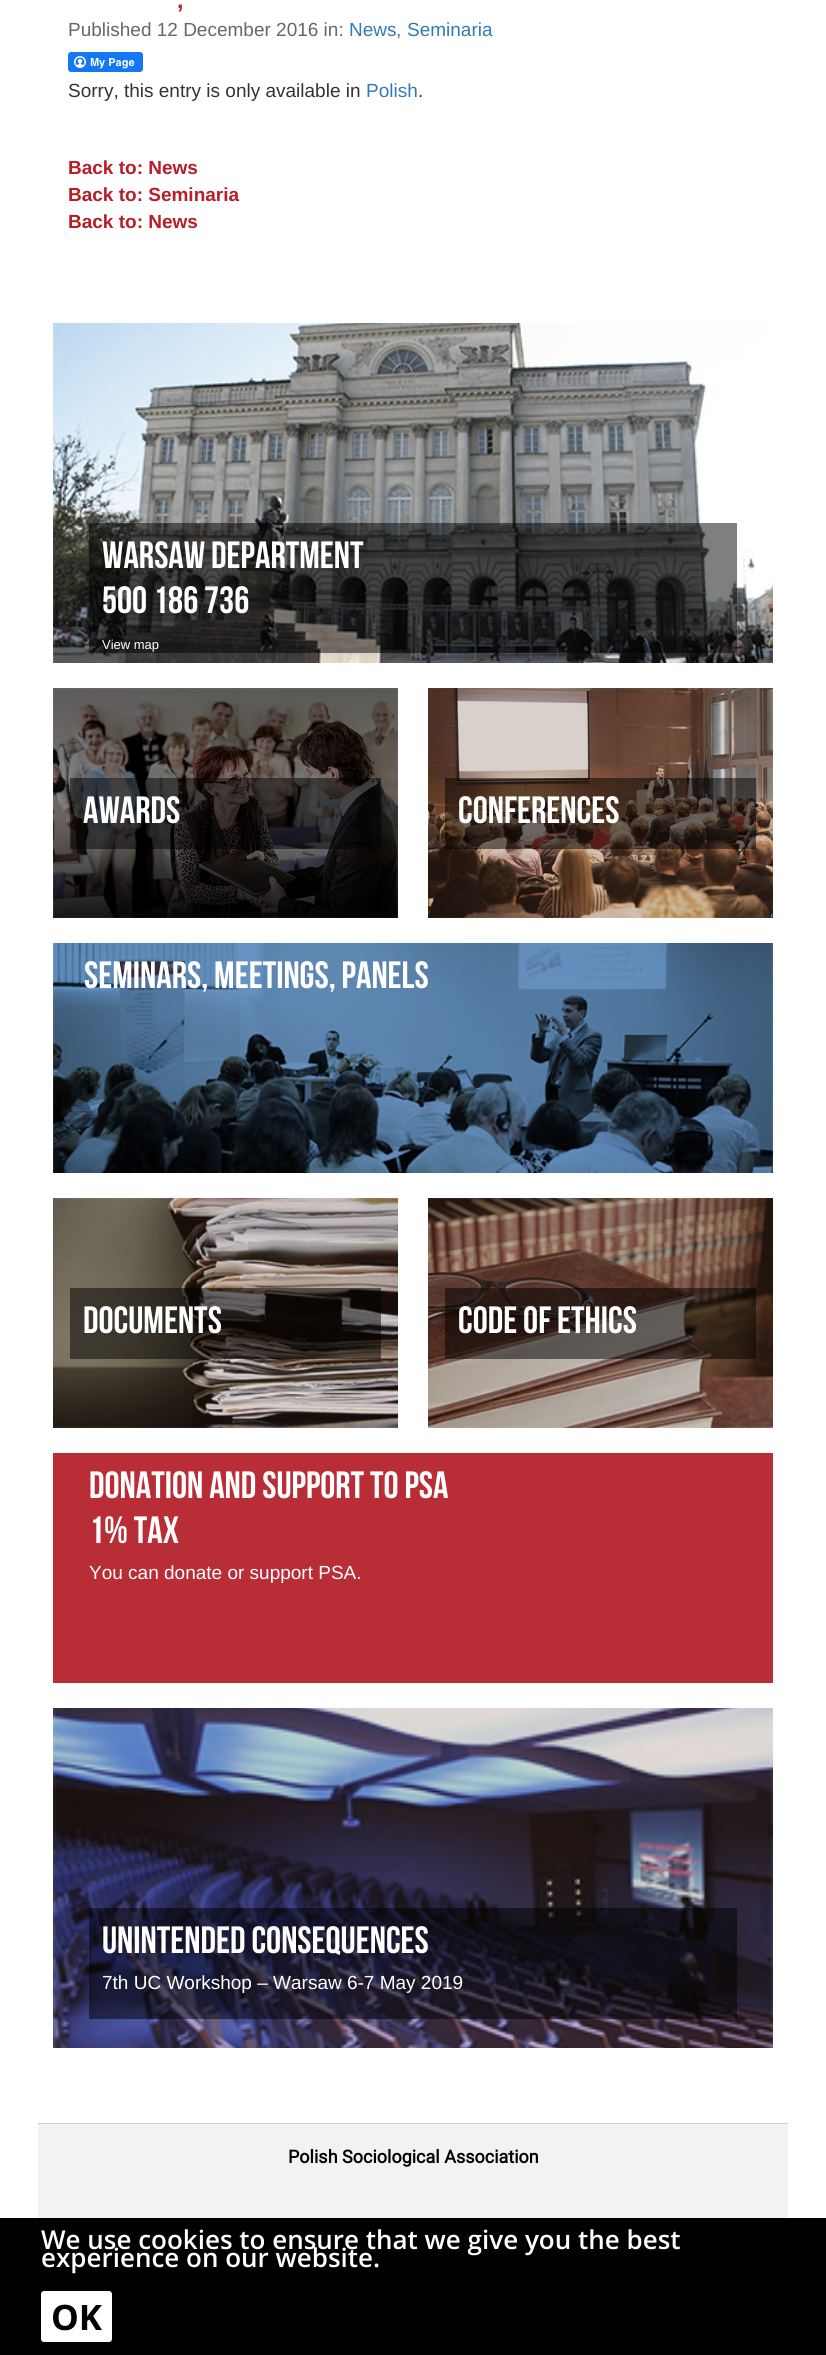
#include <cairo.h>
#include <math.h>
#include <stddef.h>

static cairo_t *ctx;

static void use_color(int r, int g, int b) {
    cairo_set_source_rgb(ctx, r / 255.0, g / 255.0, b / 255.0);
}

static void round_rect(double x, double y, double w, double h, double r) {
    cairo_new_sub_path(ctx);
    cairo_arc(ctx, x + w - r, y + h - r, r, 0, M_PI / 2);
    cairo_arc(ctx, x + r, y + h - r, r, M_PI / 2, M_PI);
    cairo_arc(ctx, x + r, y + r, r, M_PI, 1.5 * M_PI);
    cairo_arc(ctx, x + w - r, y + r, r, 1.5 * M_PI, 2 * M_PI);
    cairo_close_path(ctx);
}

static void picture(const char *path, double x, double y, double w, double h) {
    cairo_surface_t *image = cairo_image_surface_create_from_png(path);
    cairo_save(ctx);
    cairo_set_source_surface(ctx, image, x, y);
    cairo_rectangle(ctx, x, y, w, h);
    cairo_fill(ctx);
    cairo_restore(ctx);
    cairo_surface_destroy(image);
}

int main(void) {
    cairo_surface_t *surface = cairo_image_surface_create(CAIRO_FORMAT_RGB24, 826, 2355);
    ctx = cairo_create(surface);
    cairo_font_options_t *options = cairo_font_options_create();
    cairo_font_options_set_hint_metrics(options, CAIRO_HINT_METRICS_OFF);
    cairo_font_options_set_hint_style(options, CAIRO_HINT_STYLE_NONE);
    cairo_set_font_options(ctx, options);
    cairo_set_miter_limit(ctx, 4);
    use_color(255, 255, 255);
    cairo_paint(ctx);
    cairo_select_font_face(ctx, "Liberation Sans", CAIRO_FONT_SLANT_NORMAL, CAIRO_FONT_WEIGHT_BOLD);
    cairo_set_font_size(ctx, 23);
    use_color(185, 29, 38);
    cairo_move_to(ctx, 177, 8);
    cairo_show_text(ctx, ",");
    cairo_select_font_face(ctx, "Liberation Sans", CAIRO_FONT_SLANT_NORMAL, CAIRO_FONT_WEIGHT_NORMAL);
    cairo_set_font_size(ctx, 19);
    use_color(103, 103, 103);
    cairo_move_to(ctx, 68, 36);
    cairo_show_text(ctx, "Published 12 December 2016 in:");
    use_color(51, 122, 183);
    cairo_move_to(ctx, 349, 36);
    cairo_show_text(ctx, "News");
    use_color(103, 103, 103);
    cairo_move_to(ctx, 396, 36);
    cairo_show_text(ctx, ",");
    use_color(51, 122, 183);
    cairo_move_to(ctx, 407, 36);
    cairo_show_text(ctx, "Seminaria");
    picture("img1.png", 68, 52, 75, 20);
    use_color(51, 51, 51);
    cairo_move_to(ctx, 68, 97);
    cairo_show_text(ctx, "Sorry, this entry is only available in");
    use_color(51, 122, 183);
    cairo_move_to(ctx, 366, 97);
    cairo_show_text(ctx, "Polish");
    use_color(51, 51, 51);
    cairo_move_to(ctx, 418, 97);
    cairo_show_text(ctx, ".");
    cairo_select_font_face(ctx, "Liberation Sans", CAIRO_FONT_SLANT_NORMAL, CAIRO_FONT_WEIGHT_BOLD);
    use_color(185, 29, 38);
    cairo_move_to(ctx, 68, 174);
    cairo_show_text(ctx, "Back to: News");
    cairo_move_to(ctx, 68, 201);
    cairo_show_text(ctx, "Back to: Seminaria");
    cairo_move_to(ctx, 68, 228);
    cairo_show_text(ctx, "Back to: News");
    picture("img2.png", 53, 323, 720, 340);
    cairo_set_source_rgba(ctx, 0, 0, 0, 0.5);
    cairo_rectangle(ctx, 89, 523, 648, 130);
    cairo_fill(ctx);
    cairo_select_font_face(ctx, "Bebas Neue", CAIRO_FONT_SLANT_NORMAL, CAIRO_FONT_WEIGHT_NORMAL);
    cairo_set_font_size(ctx, 38);
    use_color(255, 255, 255);
    cairo_move_to(ctx, 102, 568);
    cairo_show_text(ctx, "WARSAW DEPARTMENT");
    cairo_move_to(ctx, 102, 613);
    cairo_show_text(ctx, "500 186 736");
    cairo_select_font_face(ctx, "Liberation Sans", CAIRO_FONT_SLANT_NORMAL, CAIRO_FONT_WEIGHT_NORMAL);
    cairo_set_font_size(ctx, 13);
    cairo_move_to(ctx, 102, 649);
    cairo_show_text(ctx, "View map");
    picture("img3.png", 53, 688, 345, 230);
    cairo_set_source_rgba(ctx, 0, 0, 0, 0.5);
    cairo_rectangle(ctx, 70, 778, 311, 71);
    cairo_fill(ctx);
    cairo_select_font_face(ctx, "Bebas Neue", CAIRO_FONT_SLANT_NORMAL, CAIRO_FONT_WEIGHT_NORMAL);
    cairo_set_font_size(ctx, 38);
    use_color(255, 255, 255);
    cairo_move_to(ctx, 83, 823);
    cairo_show_text(ctx, "AWARDS");
    picture("img4.png", 428, 688, 345, 230);
    cairo_set_source_rgba(ctx, 0, 0, 0, 0.5);
    cairo_rectangle(ctx, 445, 778, 311, 71);
    cairo_fill(ctx);
    use_color(255, 255, 255);
    cairo_move_to(ctx, 458, 823);
    cairo_show_text(ctx, "CONFERENCES");
    picture("img5.png", 53, 943, 720, 230);
    cairo_move_to(ctx, 84, 988);
    cairo_show_text(ctx, "SEMINARS, MEETINGS, PANELS");
    picture("img6.png", 53, 1198, 345, 230);
    cairo_set_source_rgba(ctx, 0, 0, 0, 0.5);
    cairo_rectangle(ctx, 70, 1288, 311, 71);
    cairo_fill(ctx);
    use_color(255, 255, 255);
    cairo_move_to(ctx, 83, 1333);
    cairo_show_text(ctx, "DOCUMENTS");
    picture("img7.png", 428, 1198, 345, 230);
    cairo_set_source_rgba(ctx, 0, 0, 0, 0.5);
    cairo_rectangle(ctx, 445, 1288, 311, 71);
    cairo_fill(ctx);
    use_color(255, 255, 255);
    cairo_move_to(ctx, 458, 1333);
    cairo_show_text(ctx, "CODE OF ETHICS");
    use_color(185, 46, 54);
    cairo_rectangle(ctx, 53, 1453, 720, 230);
    cairo_fill(ctx);
    use_color(255, 255, 255);
    cairo_move_to(ctx, 89, 1498);
    cairo_show_text(ctx, "DONATION AND SUPPORT TO PSA");
    cairo_move_to(ctx, 89, 1543);
    cairo_show_text(ctx, "1% TAX");
    cairo_select_font_face(ctx, "Liberation Sans", CAIRO_FONT_SLANT_NORMAL, CAIRO_FONT_WEIGHT_NORMAL);
    cairo_set_font_size(ctx, 19);
    cairo_move_to(ctx, 89, 1579);
    cairo_show_text(ctx, "You can donate or support PSA.");
    picture("img8.png", 53, 1708, 720, 340);
    cairo_set_source_rgba(ctx, 0, 0, 0, 0.5);
    cairo_rectangle(ctx, 89, 1908, 648, 111);
    cairo_fill(ctx);
    cairo_select_font_face(ctx, "Bebas Neue", CAIRO_FONT_SLANT_NORMAL, CAIRO_FONT_WEIGHT_NORMAL);
    cairo_set_font_size(ctx, 38);
    use_color(255, 255, 255);
    cairo_move_to(ctx, 102, 1953);
    cairo_show_text(ctx, "UNINTENDED CONSEQUENCES");
    cairo_select_font_face(ctx, "Liberation Sans", CAIRO_FONT_SLANT_NORMAL, CAIRO_FONT_WEIGHT_NORMAL);
    cairo_set_font_size(ctx, 19);
    cairo_move_to(ctx, 102, 1989);
    cairo_show_text(ctx, "7th UC Workshop – Warsaw 6-7 May 2019");
    use_color(242, 242, 242);
    cairo_rectangle(ctx, 38, 2124, 750, 94);
    cairo_fill(ctx);
    use_color(204, 204, 204);
    cairo_rectangle(ctx, 38, 2123, 750, 1);
    cairo_fill(ctx);
    cairo_select_font_face(ctx, "Roboto", CAIRO_FONT_SLANT_NORMAL, CAIRO_FONT_WEIGHT_BOLD);
    cairo_set_font_size(ctx, 18);
    use_color(0, 0, 0);
    cairo_move_to(ctx, 288, 2163);
    cairo_show_text(ctx, "Polish Sociological Association");
    cairo_rectangle(ctx, 0, 2218, 826, 137);
    cairo_fill(ctx);
    cairo_select_font_face(ctx, "Open Sans SemiBold", CAIRO_FONT_SLANT_NORMAL, CAIRO_FONT_WEIGHT_NORMAL);
    cairo_set_font_size(ctx, 26);
    use_color(255, 255, 255);
    cairo_move_to(ctx, 41, 2249);
    cairo_show_text(ctx, "We use cookies to ensure that we give you the best");
    cairo_move_to(ctx, 41, 2267);
    cairo_show_text(ctx, "experience on our website.");
    round_rect(41, 2291, 71, 51, 3);
    cairo_fill(ctx);
    cairo_select_font_face(ctx, "Open Sans", CAIRO_FONT_SLANT_NORMAL, CAIRO_FONT_WEIGHT_BOLD);
    cairo_set_font_size(ctx, 35);
    use_color(0, 0, 0);
    cairo_move_to(ctx, 51, 2330);
    cairo_show_text(ctx, "OK");
    cairo_surface_write_to_png(surface, "result.png");
    cairo_font_options_destroy(options);
    cairo_destroy(ctx);
    cairo_surface_destroy(surface);
    return 0;
}
